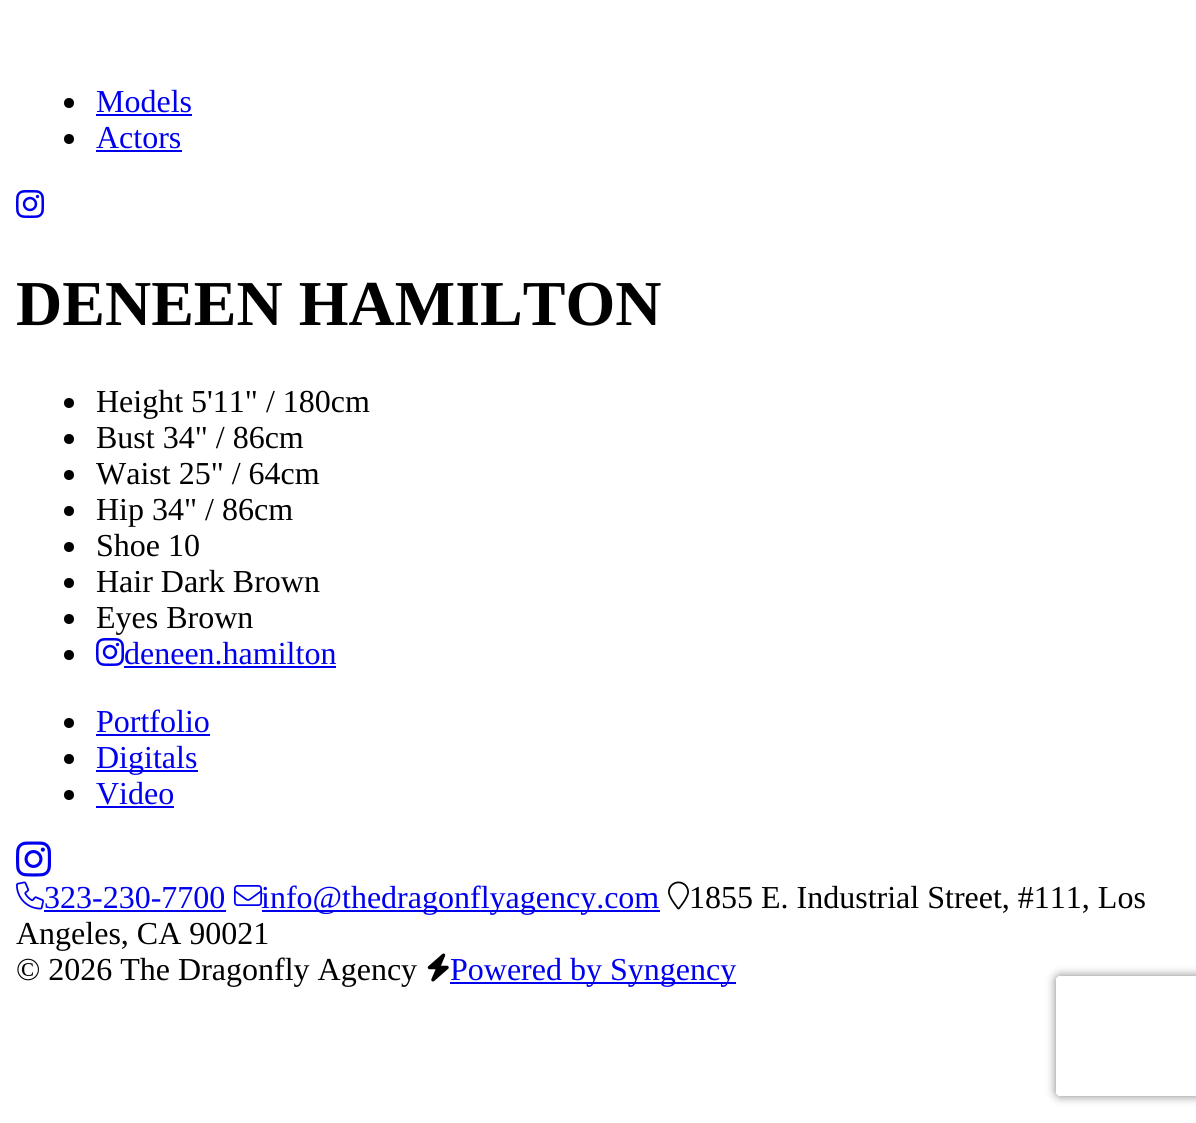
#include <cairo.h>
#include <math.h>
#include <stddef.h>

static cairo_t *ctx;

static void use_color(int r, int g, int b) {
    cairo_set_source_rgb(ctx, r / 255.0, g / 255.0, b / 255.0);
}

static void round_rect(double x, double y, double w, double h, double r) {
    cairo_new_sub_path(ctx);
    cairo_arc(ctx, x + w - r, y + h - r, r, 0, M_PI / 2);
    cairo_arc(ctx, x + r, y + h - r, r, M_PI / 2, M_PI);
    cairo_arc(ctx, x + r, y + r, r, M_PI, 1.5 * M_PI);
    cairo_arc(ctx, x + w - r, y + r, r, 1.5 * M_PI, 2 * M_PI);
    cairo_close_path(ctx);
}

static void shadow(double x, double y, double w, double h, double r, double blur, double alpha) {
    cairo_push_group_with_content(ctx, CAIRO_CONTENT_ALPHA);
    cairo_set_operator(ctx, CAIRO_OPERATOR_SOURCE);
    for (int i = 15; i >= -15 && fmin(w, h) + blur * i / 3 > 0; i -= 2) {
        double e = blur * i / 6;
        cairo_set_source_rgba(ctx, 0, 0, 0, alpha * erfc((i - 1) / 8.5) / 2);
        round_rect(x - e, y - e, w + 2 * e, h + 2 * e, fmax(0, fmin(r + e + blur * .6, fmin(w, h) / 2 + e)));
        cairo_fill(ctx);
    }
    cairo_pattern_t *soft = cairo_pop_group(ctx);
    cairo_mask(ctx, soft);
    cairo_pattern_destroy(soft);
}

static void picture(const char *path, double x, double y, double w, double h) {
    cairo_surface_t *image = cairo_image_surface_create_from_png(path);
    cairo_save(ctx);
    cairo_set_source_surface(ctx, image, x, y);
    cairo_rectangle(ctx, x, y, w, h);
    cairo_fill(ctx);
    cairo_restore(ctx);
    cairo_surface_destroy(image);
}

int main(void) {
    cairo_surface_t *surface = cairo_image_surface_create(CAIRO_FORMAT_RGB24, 1196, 1123);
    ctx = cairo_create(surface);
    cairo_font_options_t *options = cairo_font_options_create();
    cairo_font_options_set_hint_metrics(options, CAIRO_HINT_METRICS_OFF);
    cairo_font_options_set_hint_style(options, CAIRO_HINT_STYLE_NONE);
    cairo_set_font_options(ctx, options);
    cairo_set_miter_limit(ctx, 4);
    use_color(255, 255, 255);
    cairo_paint(ctx);
    use_color(0, 0, 0);
    cairo_arc(ctx, 69, 103, 5, 0, 2 * M_PI);
    cairo_fill(ctx);
    cairo_select_font_face(ctx, "Liberation Serif", CAIRO_FONT_SLANT_NORMAL, CAIRO_FONT_WEIGHT_NORMAL);
    cairo_set_font_size(ctx, 32);
    use_color(0, 0, 238);
    cairo_move_to(ctx, 96, 112);
    cairo_show_text(ctx, "Models");
    cairo_rectangle(ctx, 96, 114, 96, 2);
    cairo_fill(ctx);
    use_color(0, 0, 0);
    cairo_arc(ctx, 69, 139, 5, 0, 2 * M_PI);
    cairo_fill(ctx);
    use_color(0, 0, 238);
    cairo_move_to(ctx, 96, 148);
    cairo_show_text(ctx, "Actors");
    cairo_rectangle(ctx, 96, 150, 86, 2);
    cairo_fill(ctx);
    picture("img1.png", 16, 190, 28, 28);
    cairo_select_font_face(ctx, "Liberation Serif", CAIRO_FONT_SLANT_NORMAL, CAIRO_FONT_WEIGHT_BOLD);
    cairo_set_font_size(ctx, 64);
    use_color(0, 0, 0);
    cairo_move_to(ctx, 16, 325);
    cairo_show_text(ctx, "DENEEN HAMILTON");
    cairo_new_path(ctx);
    cairo_arc(ctx, 69, 403, 5, 0, 2 * M_PI);
    cairo_fill(ctx);
    cairo_select_font_face(ctx, "Liberation Serif", CAIRO_FONT_SLANT_NORMAL, CAIRO_FONT_WEIGHT_NORMAL);
    cairo_set_font_size(ctx, 32);
    cairo_move_to(ctx, 96, 412);
    cairo_show_text(ctx, "Height 5'11\" / 180cm");
    cairo_new_path(ctx);
    cairo_arc(ctx, 69, 439, 5, 0, 2 * M_PI);
    cairo_fill(ctx);
    cairo_move_to(ctx, 96, 448);
    cairo_show_text(ctx, "Bust 34\" / 86cm");
    cairo_new_path(ctx);
    cairo_arc(ctx, 69, 475, 5, 0, 2 * M_PI);
    cairo_fill(ctx);
    cairo_move_to(ctx, 96, 484);
    cairo_show_text(ctx, "Waist 25\" / 64cm");
    cairo_new_path(ctx);
    cairo_arc(ctx, 69, 511, 5, 0, 2 * M_PI);
    cairo_fill(ctx);
    cairo_move_to(ctx, 96, 520);
    cairo_show_text(ctx, "Hip 34\" / 86cm");
    cairo_new_path(ctx);
    cairo_arc(ctx, 69, 547, 5, 0, 2 * M_PI);
    cairo_fill(ctx);
    cairo_move_to(ctx, 96, 556);
    cairo_show_text(ctx, "Shoe 10");
    cairo_new_path(ctx);
    cairo_arc(ctx, 69, 583, 5, 0, 2 * M_PI);
    cairo_fill(ctx);
    cairo_move_to(ctx, 96, 592);
    cairo_show_text(ctx, "Hair Dark Brown");
    cairo_new_path(ctx);
    cairo_arc(ctx, 69, 619, 5, 0, 2 * M_PI);
    cairo_fill(ctx);
    cairo_move_to(ctx, 96, 628);
    cairo_show_text(ctx, "Eyes Brown");
    cairo_new_path(ctx);
    cairo_arc(ctx, 69, 655, 5, 0, 2 * M_PI);
    cairo_fill(ctx);
    picture("img1.png", 96, 638, 28, 28);
    use_color(0, 0, 238);
    cairo_move_to(ctx, 124, 664);
    cairo_show_text(ctx, "deneen.hamilton");
    cairo_rectangle(ctx, 124, 666, 212, 2);
    cairo_fill(ctx);
    use_color(0, 0, 0);
    cairo_arc(ctx, 69, 723, 5, 0, 2 * M_PI);
    cairo_fill(ctx);
    use_color(0, 0, 238);
    cairo_move_to(ctx, 96, 732);
    cairo_show_text(ctx, "Portfolio");
    cairo_rectangle(ctx, 96, 734, 114, 2);
    cairo_fill(ctx);
    use_color(0, 0, 0);
    cairo_arc(ctx, 69, 759, 5, 0, 2 * M_PI);
    cairo_fill(ctx);
    use_color(0, 0, 238);
    cairo_rectangle(ctx, 96, 770, 102, 2);
    cairo_fill(ctx);
    cairo_move_to(ctx, 96, 768);
    cairo_show_text(ctx, "Digitals");
    use_color(0, 0, 0);
    cairo_new_path(ctx);
    cairo_arc(ctx, 69, 795, 5, 0, 2 * M_PI);
    cairo_fill(ctx);
    use_color(0, 0, 238);
    cairo_move_to(ctx, 96, 804);
    cairo_show_text(ctx, "Video");
    cairo_rectangle(ctx, 96, 806, 78, 2);
    cairo_fill(ctx);
    picture("img2.png", 16, 841, 35, 36);
    picture("img3.png", 668, 881, 21, 29);
    use_color(0, 0, 0);
    cairo_move_to(ctx, 689, 908);
    cairo_show_text(ctx, "1855 E. Industrial Street, #111, Los");
    cairo_move_to(ctx, 16, 944);
    cairo_show_text(ctx, "Angeles, CA 90021");
    picture("img4.png", 16, 881, 28, 29);
    use_color(0, 0, 238);
    cairo_move_to(ctx, 44, 908);
    cairo_show_text(ctx, "323-230-7700");
    cairo_rectangle(ctx, 44, 910, 182, 2);
    cairo_fill(ctx);
    picture("img5.png", 234, 885, 28, 21);
    cairo_rectangle(ctx, 262, 910, 398, 2);
    cairo_fill(ctx);
    cairo_move_to(ctx, 261, 908);
    cairo_show_text(ctx, "info@thedragonflyagency.com");
    use_color(0, 0, 0);
    cairo_move_to(ctx, 16, 980);
    cairo_show_text(ctx, "© 2026 The Dragonfly Agency");
    picture("img6.png", 427, 953, 22, 29);
    use_color(0, 0, 238);
    cairo_rectangle(ctx, 450, 982, 286, 2);
    cairo_fill(ctx);
    cairo_move_to(ctx, 450, 980);
    cairo_show_text(ctx, "Powered by Syngency");
    cairo_save(ctx);
    cairo_set_fill_rule(ctx, CAIRO_FILL_RULE_EVEN_ODD);
    cairo_new_path(ctx);
    cairo_move_to(ctx, 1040, 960);
    cairo_line_to(ctx, 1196, 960);
    cairo_line_to(ctx, 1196, 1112);
    cairo_line_to(ctx, 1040, 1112);
    cairo_close_path(ctx);
    cairo_move_to(ctx, 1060, 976);
    cairo_line_to(ctx, 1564, 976);
    cairo_curve_to(ctx, 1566, 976, 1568, 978, 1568, 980);
    cairo_line_to(ctx, 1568, 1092);
    cairo_curve_to(ctx, 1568, 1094, 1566, 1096, 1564, 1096);
    cairo_line_to(ctx, 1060, 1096);
    cairo_curve_to(ctx, 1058, 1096, 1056, 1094, 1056, 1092);
    cairo_line_to(ctx, 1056, 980);
    cairo_curve_to(ctx, 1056, 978, 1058, 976, 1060, 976);
    cairo_close_path(ctx);
    cairo_clip(ctx);
    use_color(128, 128, 128);
    shadow(1056, 976, 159, 120, 4, 5, 1);
    cairo_restore(ctx);
    cairo_surface_write_to_png(surface, "result.png");
    cairo_font_options_destroy(options);
    cairo_destroy(ctx);
    cairo_surface_destroy(surface);
    return 0;
}
